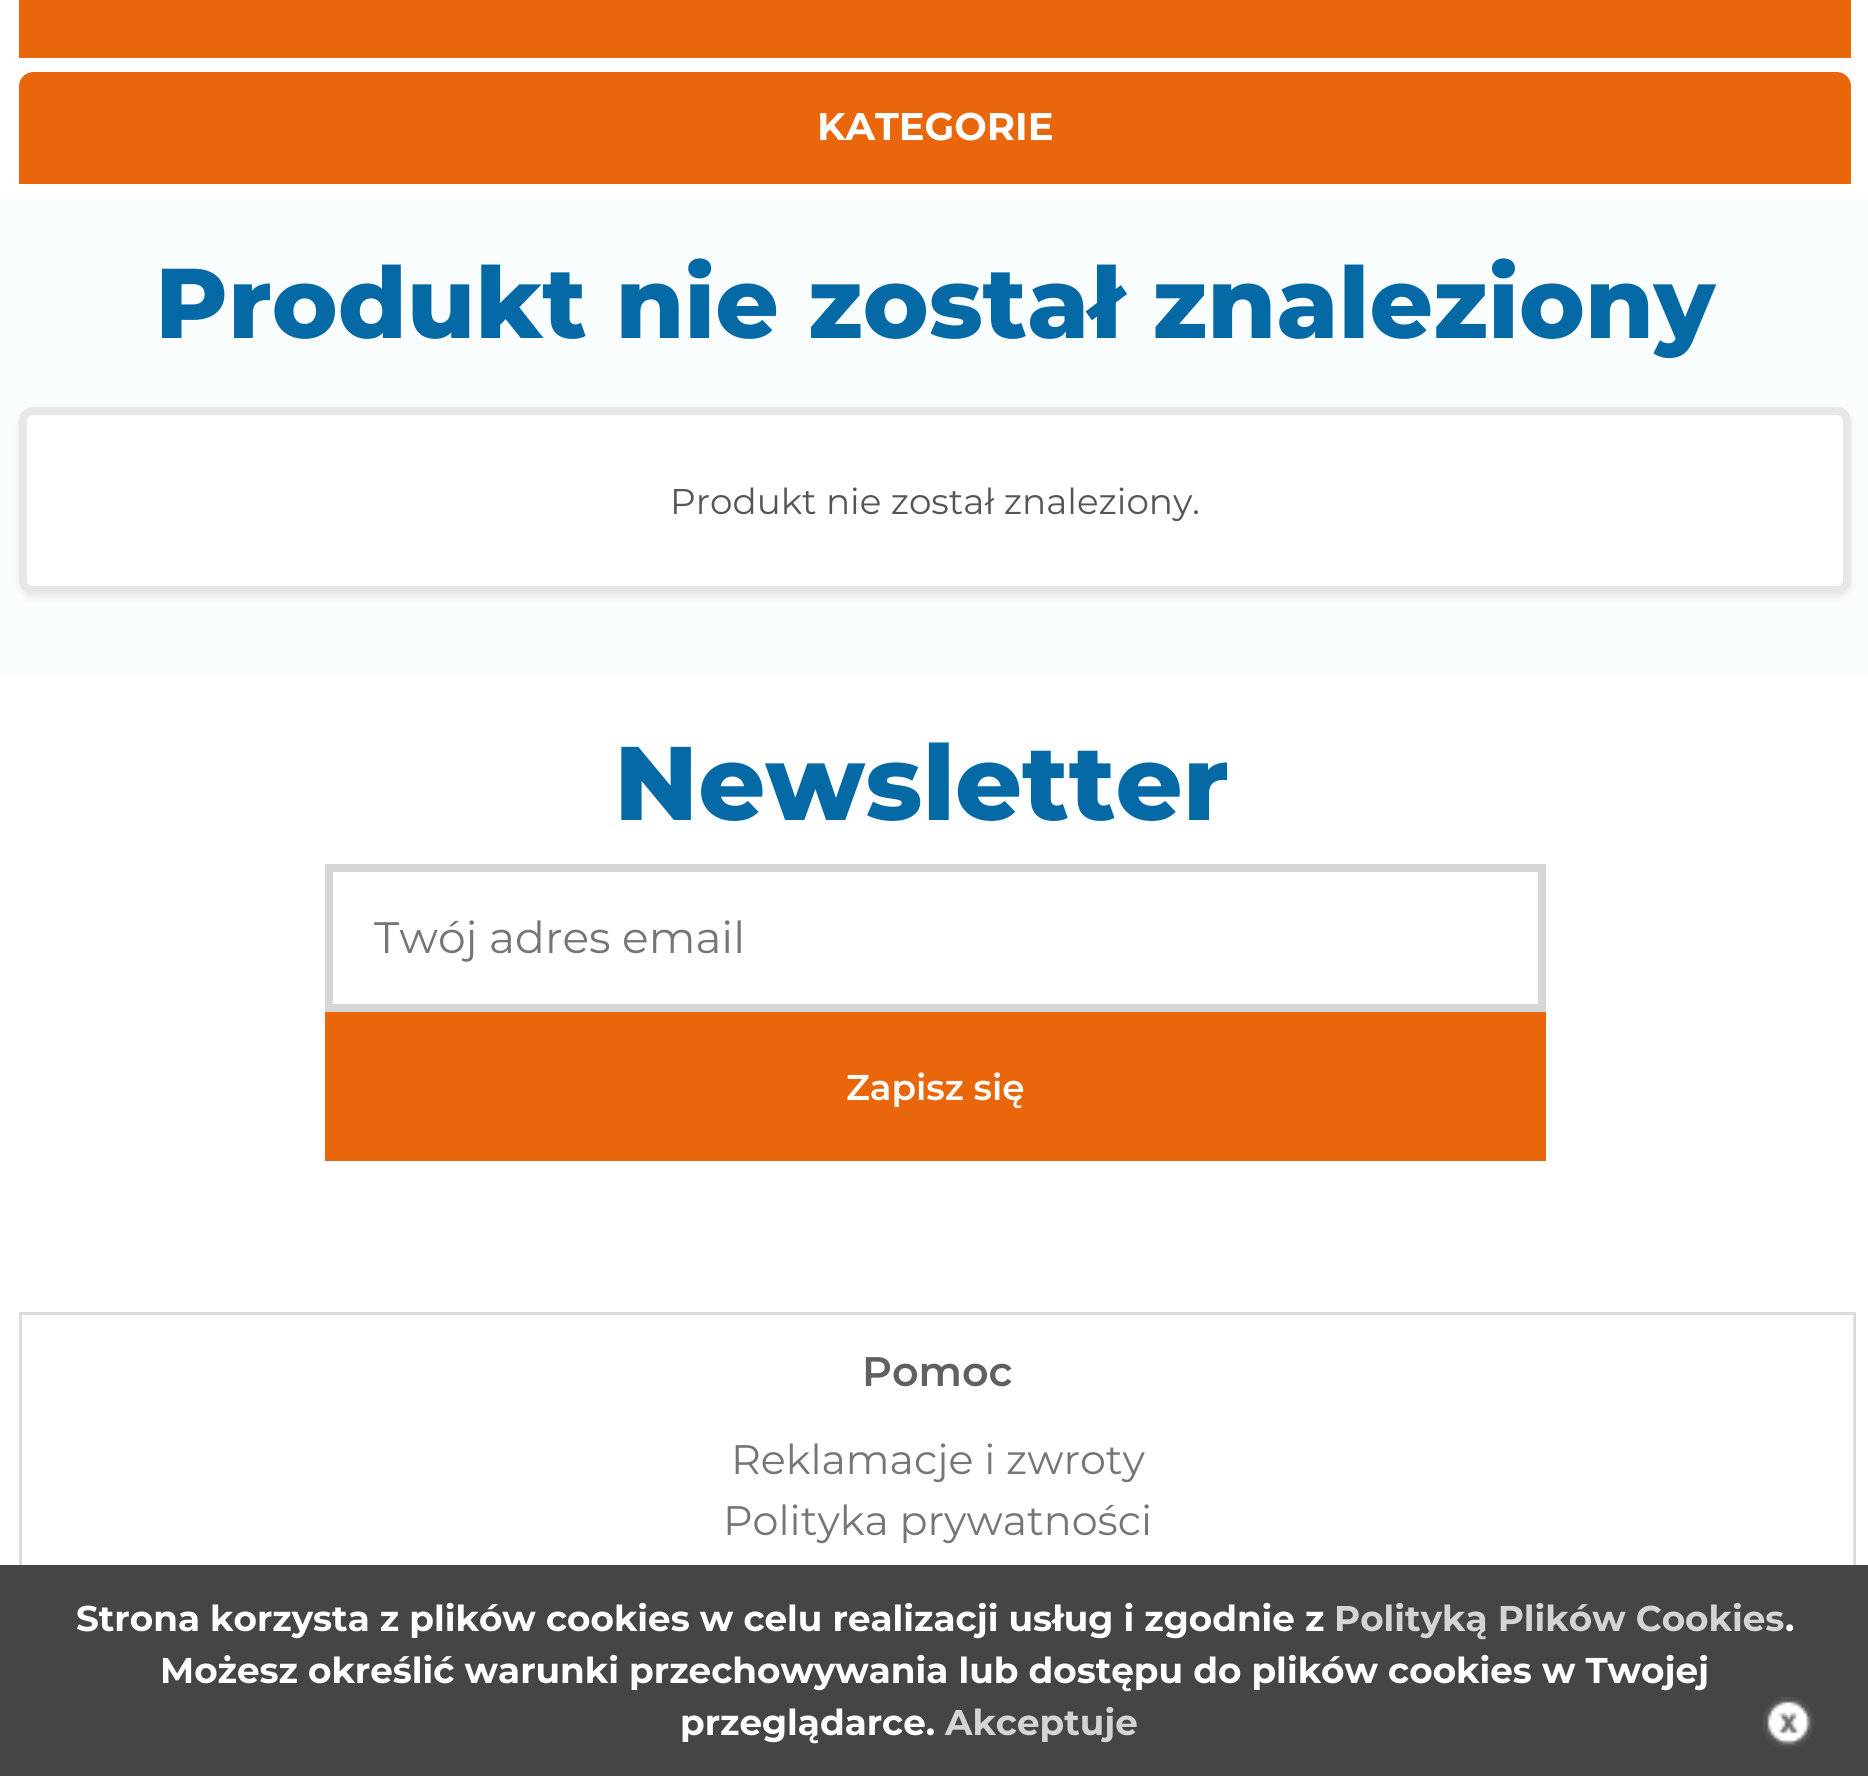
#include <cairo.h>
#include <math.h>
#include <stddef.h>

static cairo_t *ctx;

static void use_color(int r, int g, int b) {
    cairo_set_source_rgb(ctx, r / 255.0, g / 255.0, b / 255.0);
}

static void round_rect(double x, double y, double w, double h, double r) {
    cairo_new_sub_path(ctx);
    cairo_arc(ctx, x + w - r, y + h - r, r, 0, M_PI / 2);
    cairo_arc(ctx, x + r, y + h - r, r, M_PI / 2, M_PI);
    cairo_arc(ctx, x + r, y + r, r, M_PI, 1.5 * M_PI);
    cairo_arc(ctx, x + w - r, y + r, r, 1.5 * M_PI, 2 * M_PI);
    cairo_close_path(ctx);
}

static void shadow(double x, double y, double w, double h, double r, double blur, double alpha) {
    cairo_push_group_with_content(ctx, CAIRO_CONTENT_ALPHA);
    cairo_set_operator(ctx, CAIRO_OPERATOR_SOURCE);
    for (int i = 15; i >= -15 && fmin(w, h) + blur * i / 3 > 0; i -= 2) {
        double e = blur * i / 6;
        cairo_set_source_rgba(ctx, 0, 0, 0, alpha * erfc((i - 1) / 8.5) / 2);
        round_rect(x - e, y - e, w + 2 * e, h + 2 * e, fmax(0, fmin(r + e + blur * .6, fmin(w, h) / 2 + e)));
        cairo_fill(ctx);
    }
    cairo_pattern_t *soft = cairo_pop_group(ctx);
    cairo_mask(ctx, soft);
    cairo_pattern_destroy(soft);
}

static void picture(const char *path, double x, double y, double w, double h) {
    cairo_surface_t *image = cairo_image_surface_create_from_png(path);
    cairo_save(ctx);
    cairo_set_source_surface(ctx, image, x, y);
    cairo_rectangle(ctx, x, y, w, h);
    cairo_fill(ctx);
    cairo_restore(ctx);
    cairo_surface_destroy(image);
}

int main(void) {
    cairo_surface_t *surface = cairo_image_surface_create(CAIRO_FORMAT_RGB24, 1868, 1776);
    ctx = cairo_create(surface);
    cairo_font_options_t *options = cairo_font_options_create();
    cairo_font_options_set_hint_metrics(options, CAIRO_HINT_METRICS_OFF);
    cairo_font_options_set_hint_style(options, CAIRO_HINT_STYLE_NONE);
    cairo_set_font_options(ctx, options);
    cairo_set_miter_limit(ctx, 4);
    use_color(250, 253, 253);
    cairo_paint(ctx);
    use_color(255, 255, 255);
    cairo_rectangle(ctx, 0, 0, 1868, 198);
    cairo_fill(ctx);
    use_color(234, 102, 10);
    cairo_rectangle(ctx, 19, 0, 1832, 58);
    cairo_fill(ctx);
    cairo_new_path(ctx);
    cairo_move_to(ctx, 33, 72);
    cairo_line_to(ctx, 1837, 72);
    cairo_curve_to(ctx, 1844.5, 72, 1851, 78.5, 1851, 86);
    cairo_line_to(ctx, 1851, 184);
    cairo_line_to(ctx, 19, 184);
    cairo_line_to(ctx, 19, 86);
    cairo_curve_to(ctx, 19, 78.5, 25.5, 72, 33, 72);
    cairo_close_path(ctx);
    cairo_fill(ctx);
    cairo_select_font_face(ctx, "Montserrat", CAIRO_FONT_SLANT_NORMAL, CAIRO_FONT_WEIGHT_BOLD);
    cairo_set_font_size(ctx, 38.5);
    use_color(255, 255, 255);
    cairo_move_to(ctx, 817, 140);
    cairo_show_text(ctx, "KATEGORIE");
    cairo_select_font_face(ctx, "Montserrat ExtraBold", CAIRO_FONT_SLANT_NORMAL, CAIRO_FONT_WEIGHT_NORMAL);
    cairo_set_font_size(ctx, 99);
    use_color(5, 105, 166);
    cairo_move_to(ctx, 155, 338);
    cairo_show_text(ctx, "Produkt nie został znaleziony");
    use_color(231, 231, 231);
    shadow(19, 410, 1832, 187, 14, 3, 1);
    use_color(255, 255, 255);
    round_rect(23, 411, 1824, 179, 10);
    cairo_fill_preserve(ctx);
    use_color(231, 231, 231);
    cairo_set_line_width(ctx, 8);
    cairo_stroke(ctx);
    cairo_select_font_face(ctx, "Montserrat", CAIRO_FONT_SLANT_NORMAL, CAIRO_FONT_WEIGHT_NORMAL);
    cairo_set_font_size(ctx, 35.75);
    use_color(86, 86, 86);
    cairo_move_to(ctx, 670, 514);
    cairo_show_text(ctx, "Produkt nie został znaleziony.");
    use_color(255, 255, 255);
    cairo_rectangle(ctx, 0, 677, 1868, 888);
    cairo_fill(ctx);
    cairo_select_font_face(ctx, "Montserrat ExtraBold", CAIRO_FONT_SLANT_NORMAL, CAIRO_FONT_WEIGHT_NORMAL);
    cairo_set_font_size(ctx, 104.5);
    use_color(5, 105, 166);
    cairo_move_to(ctx, 614, 820);
    cairo_show_text(ctx, "Newsletter");
    cairo_rectangle(ctx, 329, 868, 1213, 140);
    use_color(214, 214, 214);
    cairo_stroke(ctx);
    cairo_select_font_face(ctx, "Montserrat", CAIRO_FONT_SLANT_NORMAL, CAIRO_FONT_WEIGHT_NORMAL);
    cairo_set_font_size(ctx, 44);
    use_color(118, 118, 118);
    cairo_move_to(ctx, 374, 953);
    cairo_show_text(ctx, "Twój adres email");
    use_color(234, 102, 10);
    cairo_rectangle(ctx, 325, 1012, 1221, 149);
    cairo_fill(ctx);
    cairo_select_font_face(ctx, "Montserrat SemiBold", CAIRO_FONT_SLANT_NORMAL, CAIRO_FONT_WEIGHT_NORMAL);
    cairo_set_font_size(ctx, 35.75);
    use_color(255, 255, 255);
    cairo_move_to(ctx, 846, 1100);
    cairo_show_text(ctx, "Zapisz się");
    cairo_rectangle(ctx, 20.5, 1313.5, 1834, 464);
    use_color(220, 220, 220);
    cairo_set_line_width(ctx, 3);
    cairo_stroke(ctx);
    cairo_set_font_size(ctx, 41.25);
    use_color(96, 96, 96);
    cairo_move_to(ctx, 862, 1386);
    cairo_show_text(ctx, "Pomoc");
    cairo_select_font_face(ctx, "Montserrat", CAIRO_FONT_SLANT_NORMAL, CAIRO_FONT_WEIGHT_NORMAL);
    use_color(118, 118, 118);
    cairo_move_to(ctx, 731, 1474);
    cairo_show_text(ctx, "Reklamacje i zwroty");
    cairo_move_to(ctx, 723, 1535);
    cairo_show_text(ctx, "Polityka prywatności");
    use_color(69, 69, 69);
    cairo_rectangle(ctx, 0, 1565, 1868, 211);
    cairo_fill(ctx);
    cairo_select_font_face(ctx, "Montserrat", CAIRO_FONT_SLANT_NORMAL, CAIRO_FONT_WEIGHT_BOLD);
    cairo_set_font_size(ctx, 35.75);
    use_color(255, 255, 255);
    cairo_move_to(ctx, 76, 1631);
    cairo_show_text(ctx, "Strona korzysta z plików cookies w celu realizacji usług i zgodnie z");
    use_color(212, 212, 212);
    cairo_move_to(ctx, 1334, 1631);
    cairo_show_text(ctx, "Polityką Plików Cookies");
    use_color(255, 255, 255);
    cairo_move_to(ctx, 1785, 1631);
    cairo_show_text(ctx, ".");
    cairo_move_to(ctx, 160, 1683);
    cairo_show_text(ctx, "Możesz określić warunki przechowywania lub dostępu do plików cookies w Twojej");
    cairo_move_to(ctx, 680, 1735);
    cairo_show_text(ctx, "przeglądarce.");
    use_color(212, 212, 212);
    cairo_move_to(ctx, 945, 1735);
    cairo_show_text(ctx, "Akceptuje");
    picture("img1.png", 1762, 1697, 53, 52);
    cairo_surface_write_to_png(surface, "result.png");
    cairo_font_options_destroy(options);
    cairo_destroy(ctx);
    cairo_surface_destroy(surface);
    return 0;
}
